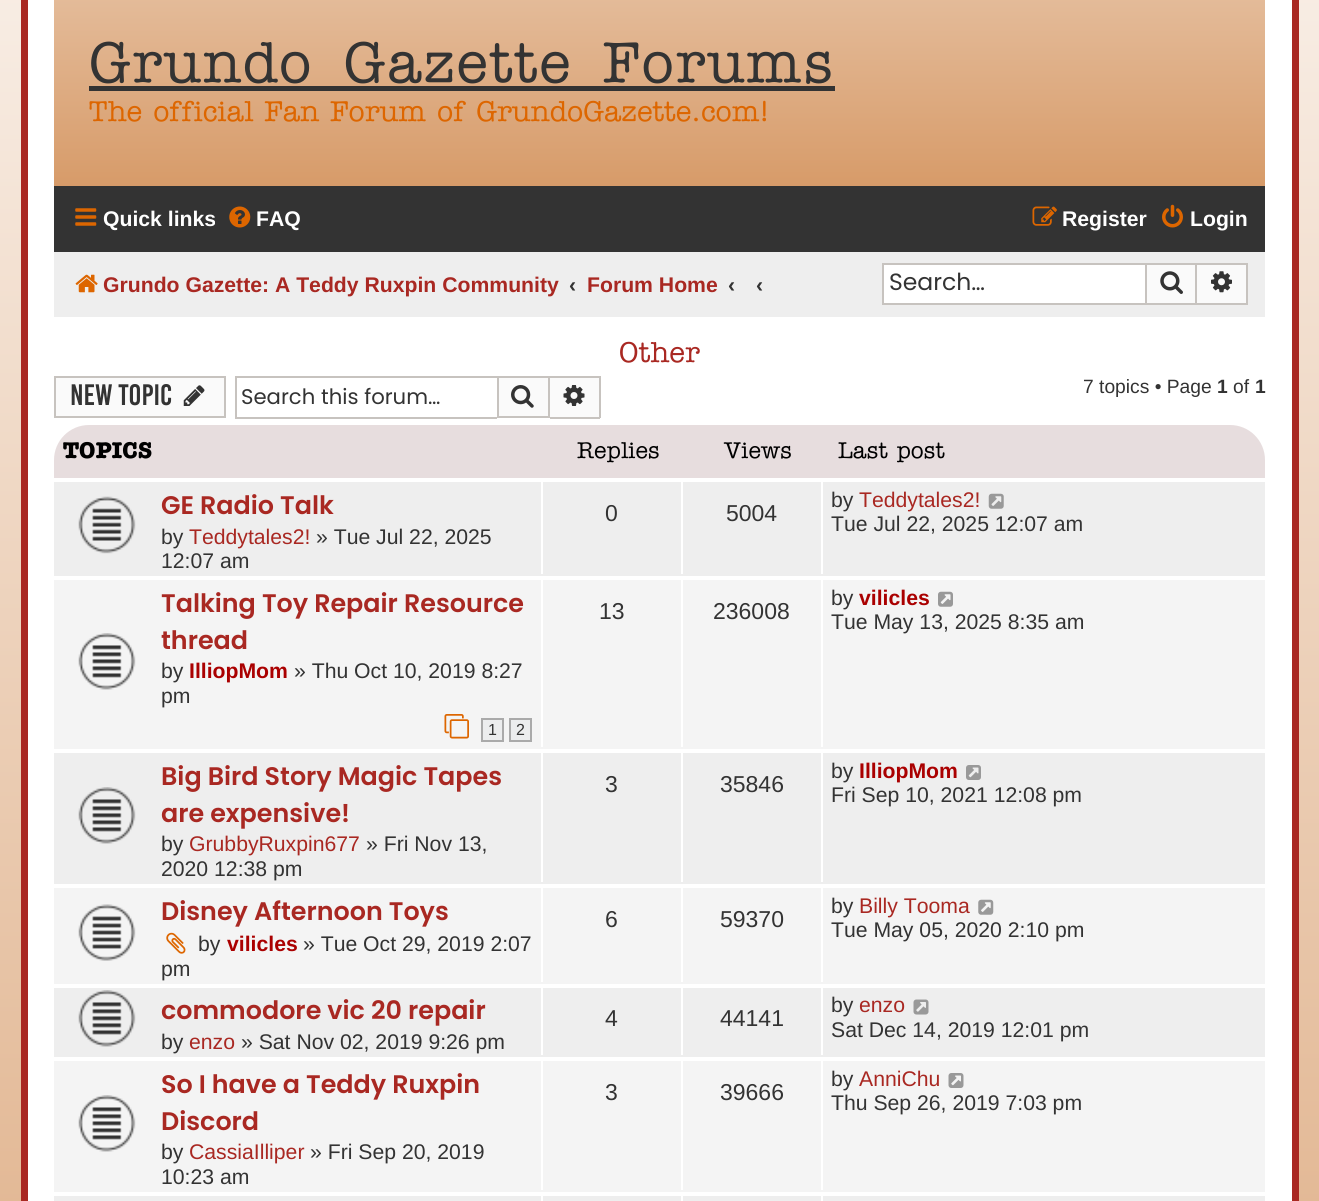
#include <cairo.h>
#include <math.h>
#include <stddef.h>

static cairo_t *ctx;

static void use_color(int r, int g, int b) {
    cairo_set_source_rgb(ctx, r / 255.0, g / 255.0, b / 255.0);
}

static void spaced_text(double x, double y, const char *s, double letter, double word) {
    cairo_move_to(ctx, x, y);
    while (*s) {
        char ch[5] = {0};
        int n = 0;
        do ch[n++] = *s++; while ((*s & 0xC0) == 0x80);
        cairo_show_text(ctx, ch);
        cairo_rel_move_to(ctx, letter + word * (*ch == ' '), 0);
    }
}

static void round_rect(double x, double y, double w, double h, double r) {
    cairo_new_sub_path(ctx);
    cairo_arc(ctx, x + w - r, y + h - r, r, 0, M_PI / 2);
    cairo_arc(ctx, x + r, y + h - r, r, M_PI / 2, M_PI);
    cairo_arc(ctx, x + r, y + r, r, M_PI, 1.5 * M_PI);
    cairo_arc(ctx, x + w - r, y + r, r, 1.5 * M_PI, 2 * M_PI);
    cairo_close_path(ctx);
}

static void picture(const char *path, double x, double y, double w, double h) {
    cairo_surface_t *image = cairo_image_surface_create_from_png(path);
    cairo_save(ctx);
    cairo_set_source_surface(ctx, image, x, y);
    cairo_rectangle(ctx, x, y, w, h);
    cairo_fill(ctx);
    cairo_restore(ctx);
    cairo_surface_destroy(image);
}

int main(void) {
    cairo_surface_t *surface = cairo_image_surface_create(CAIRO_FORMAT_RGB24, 1319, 1201);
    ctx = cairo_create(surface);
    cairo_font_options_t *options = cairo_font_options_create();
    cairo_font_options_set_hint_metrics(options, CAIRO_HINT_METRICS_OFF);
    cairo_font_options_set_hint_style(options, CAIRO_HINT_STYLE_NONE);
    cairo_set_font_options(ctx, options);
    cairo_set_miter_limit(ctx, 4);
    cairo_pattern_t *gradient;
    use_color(255, 255, 255);
    cairo_paint(ctx);
    gradient = cairo_pattern_create_linear(660, -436, 660, 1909);
    cairo_pattern_add_color_stop_rgba(gradient, 0, 1, 1, 1, 1);
    cairo_pattern_add_color_stop_rgba(gradient, 1, 0.843, 0.608, 0.412, 1);
    cairo_set_source(ctx, gradient);
    cairo_pattern_destroy(gradient);
    cairo_rectangle(ctx, 0, 0, 1319, 1201);
    cairo_fill(ctx);
    use_color(255, 255, 255);
    cairo_rectangle(ctx, 24.5, -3.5, 1271, 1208);
    cairo_fill_preserve(ctx);
    use_color(169, 40, 34);
    cairo_set_line_width(ctx, 7);
    cairo_stroke(ctx);
    gradient = cairo_pattern_create_linear(660, -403, 660, 186);
    cairo_pattern_add_color_stop_rgba(gradient, 0, 1, 1, 1, 1);
    cairo_pattern_add_color_stop_rgba(gradient, 1, 0.843, 0.608, 0.412, 1);
    cairo_set_source(ctx, gradient);
    cairo_pattern_destroy(gradient);
    cairo_rectangle(ctx, 54, 0, 1211, 186);
    cairo_fill(ctx);
    cairo_select_font_face(ctx, "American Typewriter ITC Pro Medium", CAIRO_FONT_SLANT_NORMAL, CAIRO_FONT_WEIGHT_NORMAL);
    cairo_set_font_size(ctx, 57.75);
    use_color(51, 51, 51);
    spaced_text(89, 82, "Grundo Gazette Forums", 1.75, 7);
    cairo_rectangle(ctx, 89, 86, 746, 5);
    cairo_fill(ctx);
    cairo_set_font_size(ctx, 28.9);
    use_color(221, 102, 0);
    cairo_move_to(ctx, 89, 121);
    cairo_show_text(ctx, "The official Fan Forum of GrundoGazette.com!");
    use_color(51, 51, 51);
    cairo_rectangle(ctx, 54, 186, 1211, 66);
    cairo_fill(ctx);
    picture("img1.png", 75, 208, 22, 18);
    cairo_select_font_face(ctx, "Liberation Sans", CAIRO_FONT_SLANT_NORMAL, CAIRO_FONT_WEIGHT_BOLD);
    cairo_set_font_size(ctx, 21.2);
    use_color(255, 255, 255);
    cairo_move_to(ctx, 103, 226);
    cairo_show_text(ctx, "Quick links");
    picture("img2.png", 229, 206, 22, 22);
    cairo_move_to(ctx, 256, 226);
    cairo_show_text(ctx, "FAQ");
    picture("img3.png", 1032, 206, 25, 20);
    cairo_move_to(ctx, 1062, 226);
    cairo_show_text(ctx, "Register");
    picture("img4.png", 1162, 204, 21, 24);
    cairo_move_to(ctx, 1190, 226);
    cairo_show_text(ctx, "Login");
    use_color(238, 238, 238);
    cairo_rectangle(ctx, 54, 252, 1211, 65);
    cairo_fill(ctx);
    picture("img5.png", 75, 274, 23, 19);
    use_color(169, 40, 34);
    cairo_move_to(ctx, 103, 292);
    cairo_show_text(ctx, "Grundo Gazette: A Teddy Ruxpin Community");
    use_color(51, 51, 51);
    cairo_move_to(ctx, 569, 292);
    cairo_show_text(ctx, "‹");
    use_color(169, 40, 34);
    cairo_move_to(ctx, 587, 292);
    cairo_show_text(ctx, "Forum Home");
    use_color(51, 51, 51);
    cairo_move_to(ctx, 728, 292);
    cairo_show_text(ctx, "‹");
    cairo_move_to(ctx, 756, 292);
    cairo_show_text(ctx, "‹");
    use_color(255, 255, 255);
    cairo_rectangle(ctx, 884, 265, 261, 38);
    cairo_fill(ctx);
    use_color(199, 195, 191);
    cairo_rectangle(ctx, 882, 263, 263, 2);
    cairo_fill(ctx);
    cairo_rectangle(ctx, 882, 303, 263, 2);
    cairo_fill(ctx);
    cairo_rectangle(ctx, 882, 263, 2, 42);
    cairo_fill(ctx);
    cairo_select_font_face(ctx, "Poppins", CAIRO_FONT_SLANT_NORMAL, CAIRO_FONT_WEIGHT_NORMAL);
    cairo_set_font_size(ctx, 23.5);
    use_color(51, 51, 51);
    cairo_move_to(ctx, 889, 290);
    cairo_show_text(ctx, "Search…");
    use_color(250, 250, 250);
    cairo_rectangle(ctx, 1146, 264, 50, 40);
    cairo_fill_preserve(ctx);
    use_color(199, 195, 191);
    cairo_set_line_width(ctx, 2);
    cairo_stroke(ctx);
    picture("img6.png", 1160, 271, 23, 23);
    use_color(250, 250, 250);
    cairo_rectangle(ctx, 1197, 265, 49, 38);
    cairo_fill(ctx);
    use_color(199, 195, 191);
    cairo_rectangle(ctx, 1197, 263, 51, 2);
    cairo_fill(ctx);
    cairo_rectangle(ctx, 1246, 263, 2, 42);
    cairo_fill(ctx);
    cairo_rectangle(ctx, 1197, 303, 51, 2);
    cairo_fill(ctx);
    picture("img7.png", 1211, 271, 21, 22);
    cairo_select_font_face(ctx, "American Typewriter ITC Pro Medium", CAIRO_FONT_SLANT_NORMAL, CAIRO_FONT_WEIGHT_NORMAL);
    cairo_set_font_size(ctx, 28.9);
    use_color(169, 40, 34);
    cairo_move_to(ctx, 619, 362);
    cairo_show_text(ctx, "Other");
    use_color(250, 250, 250);
    cairo_rectangle(ctx, 55, 377, 170, 40);
    cairo_fill_preserve(ctx);
    use_color(199, 195, 191);
    cairo_stroke(ctx);
    cairo_select_font_face(ctx, "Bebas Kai", CAIRO_FONT_SLANT_NORMAL, CAIRO_FONT_WEIGHT_NORMAL);
    cairo_set_font_size(ctx, 22.75);
    use_color(51, 51, 51);
    cairo_move_to(ctx, 70, 405);
    cairo_show_text(ctx, "New Topic");
    picture("img8.png", 183, 385, 22, 21);
    use_color(199, 195, 191);
    cairo_rectangle(ctx, 235, 376, 262, 2);
    cairo_fill(ctx);
    cairo_rectangle(ctx, 235, 417, 262, 2);
    cairo_fill(ctx);
    cairo_rectangle(ctx, 235, 376, 2, 42);
    cairo_fill(ctx);
    cairo_select_font_face(ctx, "Poppins", CAIRO_FONT_SLANT_NORMAL, CAIRO_FONT_WEIGHT_NORMAL);
    cairo_set_font_size(ctx, 21.2);
    use_color(51, 51, 51);
    cairo_move_to(ctx, 241, 404);
    cairo_show_text(ctx, "Search this forum…");
    use_color(250, 250, 250);
    cairo_rectangle(ctx, 498, 377, 51, 40);
    cairo_fill_preserve(ctx);
    use_color(199, 195, 191);
    cairo_stroke(ctx);
    picture("img9.png", 511, 385, 23, 23);
    use_color(250, 250, 250);
    cairo_rectangle(ctx, 550, 378, 49, 39);
    cairo_fill(ctx);
    use_color(199, 195, 191);
    cairo_rectangle(ctx, 550, 376, 50, 2);
    cairo_fill(ctx);
    cairo_rectangle(ctx, 599, 376, 2, 42);
    cairo_fill(ctx);
    cairo_rectangle(ctx, 550, 417, 50, 2);
    cairo_fill(ctx);
    picture("img10.png", 563, 385, 22, 21);
    cairo_select_font_face(ctx, "Liberation Sans", CAIRO_FONT_SLANT_NORMAL, CAIRO_FONT_WEIGHT_NORMAL);
    cairo_set_font_size(ctx, 19.25);
    use_color(51, 51, 51);
    cairo_move_to(ctx, 1083, 393);
    cairo_show_text(ctx, "7 topics • Page");
    cairo_select_font_face(ctx, "Liberation Sans", CAIRO_FONT_SLANT_NORMAL, CAIRO_FONT_WEIGHT_BOLD);
    cairo_move_to(ctx, 1217, 393);
    cairo_show_text(ctx, "1");
    cairo_select_font_face(ctx, "Liberation Sans", CAIRO_FONT_SLANT_NORMAL, CAIRO_FONT_WEIGHT_NORMAL);
    cairo_move_to(ctx, 1233, 393);
    cairo_show_text(ctx, "of");
    cairo_select_font_face(ctx, "Liberation Sans", CAIRO_FONT_SLANT_NORMAL, CAIRO_FONT_WEIGHT_BOLD);
    cairo_move_to(ctx, 1255, 393);
    cairo_show_text(ctx, "1");
    use_color(231, 221, 222);
    round_rect(54, 425, 1211, 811, 35);
    cairo_fill(ctx);
    cairo_select_font_face(ctx, "American Typewriter ITC Pro", CAIRO_FONT_SLANT_NORMAL, CAIRO_FONT_WEIGHT_BOLD);
    cairo_set_font_size(ctx, 23);
    use_color(0, 0, 0);
    cairo_move_to(ctx, 63, 458);
    cairo_show_text(ctx, "TOPICS");
    cairo_select_font_face(ctx, "American Typewriter ITC Pro Medium", CAIRO_FONT_SLANT_NORMAL, CAIRO_FONT_WEIGHT_NORMAL);
    cairo_move_to(ctx, 577, 458);
    cairo_show_text(ctx, "Replies");
    cairo_move_to(ctx, 724, 458);
    cairo_show_text(ctx, "Views");
    cairo_move_to(ctx, 838, 458);
    cairo_show_text(ctx, "Last post");
    use_color(238, 238, 238);
    cairo_rectangle(ctx, 54, 482, 1211, 94);
    cairo_fill(ctx);
    use_color(255, 255, 255);
    cairo_rectangle(ctx, 54, 478, 1211, 4);
    cairo_fill(ctx);
    picture("img11.png", 78, 496, 58, 58);
    cairo_select_font_face(ctx, "Poppins SemiBold", CAIRO_FONT_SLANT_NORMAL, CAIRO_FONT_WEIGHT_NORMAL);
    cairo_set_font_size(ctx, 25.4);
    use_color(169, 40, 34);
    cairo_move_to(ctx, 161, 514);
    cairo_show_text(ctx, "GE Radio Talk");
    cairo_select_font_face(ctx, "Liberation Sans", CAIRO_FONT_SLANT_NORMAL, CAIRO_FONT_WEIGHT_NORMAL);
    cairo_set_font_size(ctx, 21.2);
    use_color(51, 51, 51);
    cairo_move_to(ctx, 161, 544);
    cairo_show_text(ctx, "by");
    use_color(169, 40, 34);
    cairo_move_to(ctx, 189, 544);
    cairo_show_text(ctx, "Teddytales2!");
    use_color(51, 51, 51);
    cairo_move_to(ctx, 316, 544);
    cairo_show_text(ctx, "» Tue Jul 22, 2025");
    cairo_move_to(ctx, 161, 568);
    cairo_show_text(ctx, "12:07 am");
    use_color(255, 255, 255);
    cairo_rectangle(ctx, 541, 481, 2, 93);
    cairo_fill(ctx);
    cairo_set_font_size(ctx, 23);
    use_color(51, 51, 51);
    cairo_move_to(ctx, 605, 521);
    cairo_show_text(ctx, "0");
    use_color(255, 255, 255);
    cairo_rectangle(ctx, 681, 481, 2, 93);
    cairo_fill(ctx);
    use_color(51, 51, 51);
    cairo_move_to(ctx, 726, 521);
    cairo_show_text(ctx, "5004");
    use_color(255, 255, 255);
    cairo_rectangle(ctx, 821, 481, 2, 93);
    cairo_fill(ctx);
    cairo_set_font_size(ctx, 21.2);
    use_color(51, 51, 51);
    cairo_move_to(ctx, 831, 507);
    cairo_show_text(ctx, "by");
    use_color(169, 40, 34);
    cairo_move_to(ctx, 859, 507);
    cairo_show_text(ctx, "Teddytales2!");
    picture("img12.png", 988, 493, 16, 16);
    use_color(51, 51, 51);
    cairo_move_to(ctx, 831, 531);
    cairo_show_text(ctx, "Tue Jul 22, 2025 12:07 am");
    use_color(244, 244, 244);
    cairo_rectangle(ctx, 54, 580, 1211, 169);
    cairo_fill(ctx);
    use_color(255, 255, 255);
    cairo_rectangle(ctx, 54, 576, 1211, 4);
    cairo_fill(ctx);
    picture("img13.png", 78, 633, 58, 57);
    cairo_select_font_face(ctx, "Poppins SemiBold", CAIRO_FONT_SLANT_NORMAL, CAIRO_FONT_WEIGHT_NORMAL);
    cairo_set_font_size(ctx, 25.4);
    use_color(169, 40, 34);
    cairo_move_to(ctx, 161, 612);
    cairo_show_text(ctx, "Talking Toy Repair Resource");
    cairo_move_to(ctx, 161, 649);
    cairo_show_text(ctx, "thread");
    cairo_select_font_face(ctx, "Liberation Sans", CAIRO_FONT_SLANT_NORMAL, CAIRO_FONT_WEIGHT_NORMAL);
    cairo_set_font_size(ctx, 21.2);
    use_color(51, 51, 51);
    cairo_move_to(ctx, 161, 678);
    cairo_show_text(ctx, "by");
    cairo_select_font_face(ctx, "Liberation Sans", CAIRO_FONT_SLANT_NORMAL, CAIRO_FONT_WEIGHT_BOLD);
    use_color(170, 0, 0);
    cairo_move_to(ctx, 189, 678);
    cairo_show_text(ctx, "IlliopMom");
    cairo_select_font_face(ctx, "Liberation Sans", CAIRO_FONT_SLANT_NORMAL, CAIRO_FONT_WEIGHT_NORMAL);
    use_color(51, 51, 51);
    cairo_move_to(ctx, 294, 678);
    cairo_show_text(ctx, "» Thu Oct 10, 2019 8:27");
    cairo_move_to(ctx, 161, 703);
    cairo_show_text(ctx, "pm");
    picture("img14.png", 444, 714, 25, 25);
    use_color(236, 237, 238);
    cairo_rectangle(ctx, 482, 719, 21, 22);
    cairo_fill_preserve(ctx);
    use_color(170, 170, 170);
    cairo_stroke(ctx);
    cairo_set_font_size(ctx, 16);
    use_color(51, 51, 51);
    cairo_move_to(ctx, 488, 735);
    cairo_show_text(ctx, "1");
    use_color(236, 237, 238);
    cairo_rectangle(ctx, 510, 719, 21, 22);
    cairo_fill_preserve(ctx);
    use_color(170, 170, 170);
    cairo_stroke(ctx);
    use_color(51, 51, 51);
    cairo_move_to(ctx, 516, 735);
    cairo_show_text(ctx, "2");
    use_color(255, 255, 255);
    cairo_rectangle(ctx, 541, 579, 2, 168);
    cairo_fill(ctx);
    cairo_set_font_size(ctx, 23);
    use_color(51, 51, 51);
    cairo_move_to(ctx, 599, 619);
    cairo_show_text(ctx, "13");
    use_color(255, 255, 255);
    cairo_rectangle(ctx, 681, 579, 2, 168);
    cairo_fill(ctx);
    use_color(51, 51, 51);
    cairo_move_to(ctx, 713, 619);
    cairo_show_text(ctx, "236008");
    use_color(255, 255, 255);
    cairo_rectangle(ctx, 821, 579, 2, 168);
    cairo_fill(ctx);
    cairo_set_font_size(ctx, 21.2);
    use_color(51, 51, 51);
    cairo_move_to(ctx, 831, 605);
    cairo_show_text(ctx, "by");
    cairo_select_font_face(ctx, "Liberation Sans", CAIRO_FONT_SLANT_NORMAL, CAIRO_FONT_WEIGHT_BOLD);
    use_color(170, 0, 0);
    cairo_move_to(ctx, 859, 605);
    cairo_show_text(ctx, "vilicles");
    picture("img15.png", 938, 591, 15, 16);
    cairo_select_font_face(ctx, "Liberation Sans", CAIRO_FONT_SLANT_NORMAL, CAIRO_FONT_WEIGHT_NORMAL);
    use_color(51, 51, 51);
    cairo_move_to(ctx, 831, 629);
    cairo_show_text(ctx, "Tue May 13, 2025 8:35 am");
    use_color(238, 238, 238);
    cairo_rectangle(ctx, 54, 753, 1211, 131);
    cairo_fill(ctx);
    use_color(255, 255, 255);
    cairo_rectangle(ctx, 54, 749, 1211, 4);
    cairo_fill(ctx);
    picture("img16.png", 78, 787, 58, 57);
    cairo_select_font_face(ctx, "Poppins SemiBold", CAIRO_FONT_SLANT_NORMAL, CAIRO_FONT_WEIGHT_NORMAL);
    cairo_set_font_size(ctx, 25.4);
    use_color(169, 40, 34);
    cairo_move_to(ctx, 161, 785);
    cairo_show_text(ctx, "Big Bird Story Magic Tapes");
    cairo_move_to(ctx, 161, 822);
    cairo_show_text(ctx, "are expensive!");
    cairo_select_font_face(ctx, "Liberation Sans", CAIRO_FONT_SLANT_NORMAL, CAIRO_FONT_WEIGHT_NORMAL);
    cairo_set_font_size(ctx, 21.2);
    use_color(51, 51, 51);
    cairo_move_to(ctx, 161, 851);
    cairo_show_text(ctx, "by");
    use_color(169, 40, 34);
    cairo_move_to(ctx, 189, 851);
    cairo_show_text(ctx, "GrubbyRuxpin677");
    use_color(51, 51, 51);
    cairo_move_to(ctx, 366, 851);
    cairo_show_text(ctx, "» Fri Nov 13,");
    cairo_move_to(ctx, 161, 876);
    cairo_show_text(ctx, "2020 12:38 pm");
    use_color(255, 255, 255);
    cairo_rectangle(ctx, 541, 753, 2, 129);
    cairo_fill(ctx);
    cairo_set_font_size(ctx, 23);
    use_color(51, 51, 51);
    cairo_move_to(ctx, 605, 792);
    cairo_show_text(ctx, "3");
    use_color(255, 255, 255);
    cairo_rectangle(ctx, 681, 753, 2, 129);
    cairo_fill(ctx);
    use_color(51, 51, 51);
    cairo_move_to(ctx, 720, 792);
    cairo_show_text(ctx, "35846");
    use_color(255, 255, 255);
    cairo_rectangle(ctx, 821, 753, 2, 129);
    cairo_fill(ctx);
    cairo_set_font_size(ctx, 21.2);
    use_color(51, 51, 51);
    cairo_move_to(ctx, 831, 778);
    cairo_show_text(ctx, "by");
    cairo_select_font_face(ctx, "Liberation Sans", CAIRO_FONT_SLANT_NORMAL, CAIRO_FONT_WEIGHT_BOLD);
    use_color(170, 0, 0);
    cairo_move_to(ctx, 859, 778);
    cairo_show_text(ctx, "IlliopMom");
    picture("img17.png", 966, 765, 15, 15);
    cairo_select_font_face(ctx, "Liberation Sans", CAIRO_FONT_SLANT_NORMAL, CAIRO_FONT_WEIGHT_NORMAL);
    use_color(51, 51, 51);
    cairo_move_to(ctx, 831, 802);
    cairo_show_text(ctx, "Fri Sep 10, 2021 12:08 pm");
    use_color(244, 244, 244);
    cairo_rectangle(ctx, 54, 888, 1211, 96);
    cairo_fill(ctx);
    use_color(255, 255, 255);
    cairo_rectangle(ctx, 54, 884, 1211, 4);
    cairo_fill(ctx);
    picture("img18.png", 78, 904, 58, 57);
    cairo_select_font_face(ctx, "Poppins SemiBold", CAIRO_FONT_SLANT_NORMAL, CAIRO_FONT_WEIGHT_NORMAL);
    cairo_set_font_size(ctx, 25.4);
    use_color(169, 40, 34);
    cairo_move_to(ctx, 161, 920);
    cairo_show_text(ctx, "Disney Afternoon Toys");
    picture("img19.png", 166, 932, 20, 22);
    cairo_select_font_face(ctx, "Liberation Sans", CAIRO_FONT_SLANT_NORMAL, CAIRO_FONT_WEIGHT_NORMAL);
    cairo_set_font_size(ctx, 21.2);
    use_color(51, 51, 51);
    cairo_move_to(ctx, 198, 951);
    cairo_show_text(ctx, "by");
    cairo_select_font_face(ctx, "Liberation Sans", CAIRO_FONT_SLANT_NORMAL, CAIRO_FONT_WEIGHT_BOLD);
    use_color(170, 0, 0);
    cairo_move_to(ctx, 227, 951);
    cairo_show_text(ctx, "vilicles");
    cairo_select_font_face(ctx, "Liberation Sans", CAIRO_FONT_SLANT_NORMAL, CAIRO_FONT_WEIGHT_NORMAL);
    use_color(51, 51, 51);
    cairo_move_to(ctx, 303, 951);
    cairo_show_text(ctx, "» Tue Oct 29, 2019 2:07");
    cairo_move_to(ctx, 161, 976);
    cairo_show_text(ctx, "pm");
    use_color(255, 255, 255);
    cairo_rectangle(ctx, 541, 887, 2, 95);
    cairo_fill(ctx);
    cairo_set_font_size(ctx, 23);
    use_color(51, 51, 51);
    cairo_move_to(ctx, 605, 927);
    cairo_show_text(ctx, "6");
    use_color(255, 255, 255);
    cairo_rectangle(ctx, 681, 887, 2, 95);
    cairo_fill(ctx);
    use_color(51, 51, 51);
    cairo_move_to(ctx, 720, 927);
    cairo_show_text(ctx, "59370");
    use_color(255, 255, 255);
    cairo_rectangle(ctx, 821, 887, 2, 95);
    cairo_fill(ctx);
    cairo_set_font_size(ctx, 21.2);
    use_color(51, 51, 51);
    cairo_move_to(ctx, 831, 913);
    cairo_show_text(ctx, "by");
    use_color(169, 40, 34);
    cairo_move_to(ctx, 859, 913);
    cairo_show_text(ctx, "Billy Tooma");
    picture("img20.png", 978, 899, 16, 16);
    use_color(51, 51, 51);
    cairo_move_to(ctx, 831, 937);
    cairo_show_text(ctx, "Tue May 05, 2020 2:10 pm");
    use_color(238, 238, 238);
    cairo_rectangle(ctx, 54, 988, 1211, 69);
    cairo_fill(ctx);
    use_color(255, 255, 255);
    cairo_rectangle(ctx, 54, 984, 1211, 4);
    cairo_fill(ctx);
    picture("img16.png", 78, 990, 58, 57);
    cairo_select_font_face(ctx, "Poppins SemiBold", CAIRO_FONT_SLANT_NORMAL, CAIRO_FONT_WEIGHT_NORMAL);
    cairo_set_font_size(ctx, 25.4);
    use_color(169, 40, 34);
    cairo_move_to(ctx, 161, 1019);
    cairo_show_text(ctx, "commodore vic 20 repair");
    cairo_select_font_face(ctx, "Liberation Sans", CAIRO_FONT_SLANT_NORMAL, CAIRO_FONT_WEIGHT_NORMAL);
    cairo_set_font_size(ctx, 21.2);
    use_color(51, 51, 51);
    cairo_move_to(ctx, 161, 1049);
    cairo_show_text(ctx, "by");
    use_color(169, 40, 34);
    cairo_move_to(ctx, 189, 1049);
    cairo_show_text(ctx, "enzo");
    use_color(51, 51, 51);
    cairo_move_to(ctx, 241, 1049);
    cairo_show_text(ctx, "» Sat Nov 02, 2019 9:26 pm");
    use_color(255, 255, 255);
    cairo_rectangle(ctx, 541, 987, 2, 68);
    cairo_fill(ctx);
    cairo_set_font_size(ctx, 23);
    use_color(51, 51, 51);
    cairo_move_to(ctx, 605, 1026);
    cairo_show_text(ctx, "4");
    use_color(255, 255, 255);
    cairo_rectangle(ctx, 681, 987, 2, 68);
    cairo_fill(ctx);
    use_color(51, 51, 51);
    cairo_move_to(ctx, 720, 1026);
    cairo_show_text(ctx, "44141");
    use_color(255, 255, 255);
    cairo_rectangle(ctx, 821, 987, 2, 68);
    cairo_fill(ctx);
    cairo_set_font_size(ctx, 21.2);
    use_color(51, 51, 51);
    cairo_move_to(ctx, 831, 1012);
    cairo_show_text(ctx, "by");
    use_color(169, 40, 34);
    cairo_move_to(ctx, 859, 1012);
    cairo_show_text(ctx, "enzo");
    picture("img21.png", 913, 999, 16, 16);
    use_color(51, 51, 51);
    cairo_move_to(ctx, 831, 1037);
    cairo_show_text(ctx, "Sat Dec 14, 2019 12:01 pm");
    use_color(244, 244, 244);
    cairo_rectangle(ctx, 54, 1061, 1211, 131);
    cairo_fill(ctx);
    use_color(255, 255, 255);
    cairo_rectangle(ctx, 54, 1057, 1211, 4);
    cairo_fill(ctx);
    picture("img13.png", 78, 1095, 58, 57);
    cairo_select_font_face(ctx, "Poppins SemiBold", CAIRO_FONT_SLANT_NORMAL, CAIRO_FONT_WEIGHT_NORMAL);
    cairo_set_font_size(ctx, 25.4);
    use_color(169, 40, 34);
    cairo_move_to(ctx, 161, 1093);
    cairo_show_text(ctx, "So I have a Teddy Ruxpin");
    cairo_move_to(ctx, 161, 1130);
    cairo_show_text(ctx, "Discord");
    cairo_select_font_face(ctx, "Liberation Sans", CAIRO_FONT_SLANT_NORMAL, CAIRO_FONT_WEIGHT_NORMAL);
    cairo_set_font_size(ctx, 21.2);
    use_color(51, 51, 51);
    cairo_move_to(ctx, 161, 1159);
    cairo_show_text(ctx, "by");
    use_color(169, 40, 34);
    cairo_move_to(ctx, 189, 1159);
    cairo_show_text(ctx, "CassiaIlliper");
    use_color(51, 51, 51);
    cairo_move_to(ctx, 310, 1159);
    cairo_show_text(ctx, "» Fri Sep 20, 2019");
    cairo_move_to(ctx, 161, 1184);
    cairo_show_text(ctx, "10:23 am");
    use_color(255, 255, 255);
    cairo_rectangle(ctx, 541, 1061, 2, 129);
    cairo_fill(ctx);
    cairo_set_font_size(ctx, 23);
    use_color(51, 51, 51);
    cairo_move_to(ctx, 605, 1100);
    cairo_show_text(ctx, "3");
    use_color(255, 255, 255);
    cairo_rectangle(ctx, 681, 1061, 2, 129);
    cairo_fill(ctx);
    use_color(51, 51, 51);
    cairo_move_to(ctx, 720, 1100);
    cairo_show_text(ctx, "39666");
    use_color(255, 255, 255);
    cairo_rectangle(ctx, 821, 1061, 2, 129);
    cairo_fill(ctx);
    cairo_set_font_size(ctx, 21.2);
    use_color(51, 51, 51);
    cairo_move_to(ctx, 831, 1086);
    cairo_show_text(ctx, "by");
    use_color(169, 40, 34);
    cairo_move_to(ctx, 859, 1086);
    cairo_show_text(ctx, "AnniChu");
    picture("img22.png", 948, 1073, 16, 15);
    use_color(51, 51, 51);
    cairo_move_to(ctx, 831, 1110);
    cairo_show_text(ctx, "Thu Sep 26, 2019 7:03 pm");
    use_color(238, 238, 238);
    cairo_rectangle(ctx, 54, 1196, 1211, 5);
    cairo_fill(ctx);
    use_color(255, 255, 255);
    cairo_rectangle(ctx, 54, 1192, 1211, 4);
    cairo_fill(ctx);
    cairo_rectangle(ctx, 541, 1195, 2, 6);
    cairo_fill(ctx);
    cairo_rectangle(ctx, 681, 1195, 2, 6);
    cairo_fill(ctx);
    cairo_rectangle(ctx, 821, 1195, 2, 6);
    cairo_fill(ctx);
    cairo_surface_write_to_png(surface, "result.png");
    cairo_font_options_destroy(options);
    cairo_destroy(ctx);
    cairo_surface_destroy(surface);
    return 0;
}
